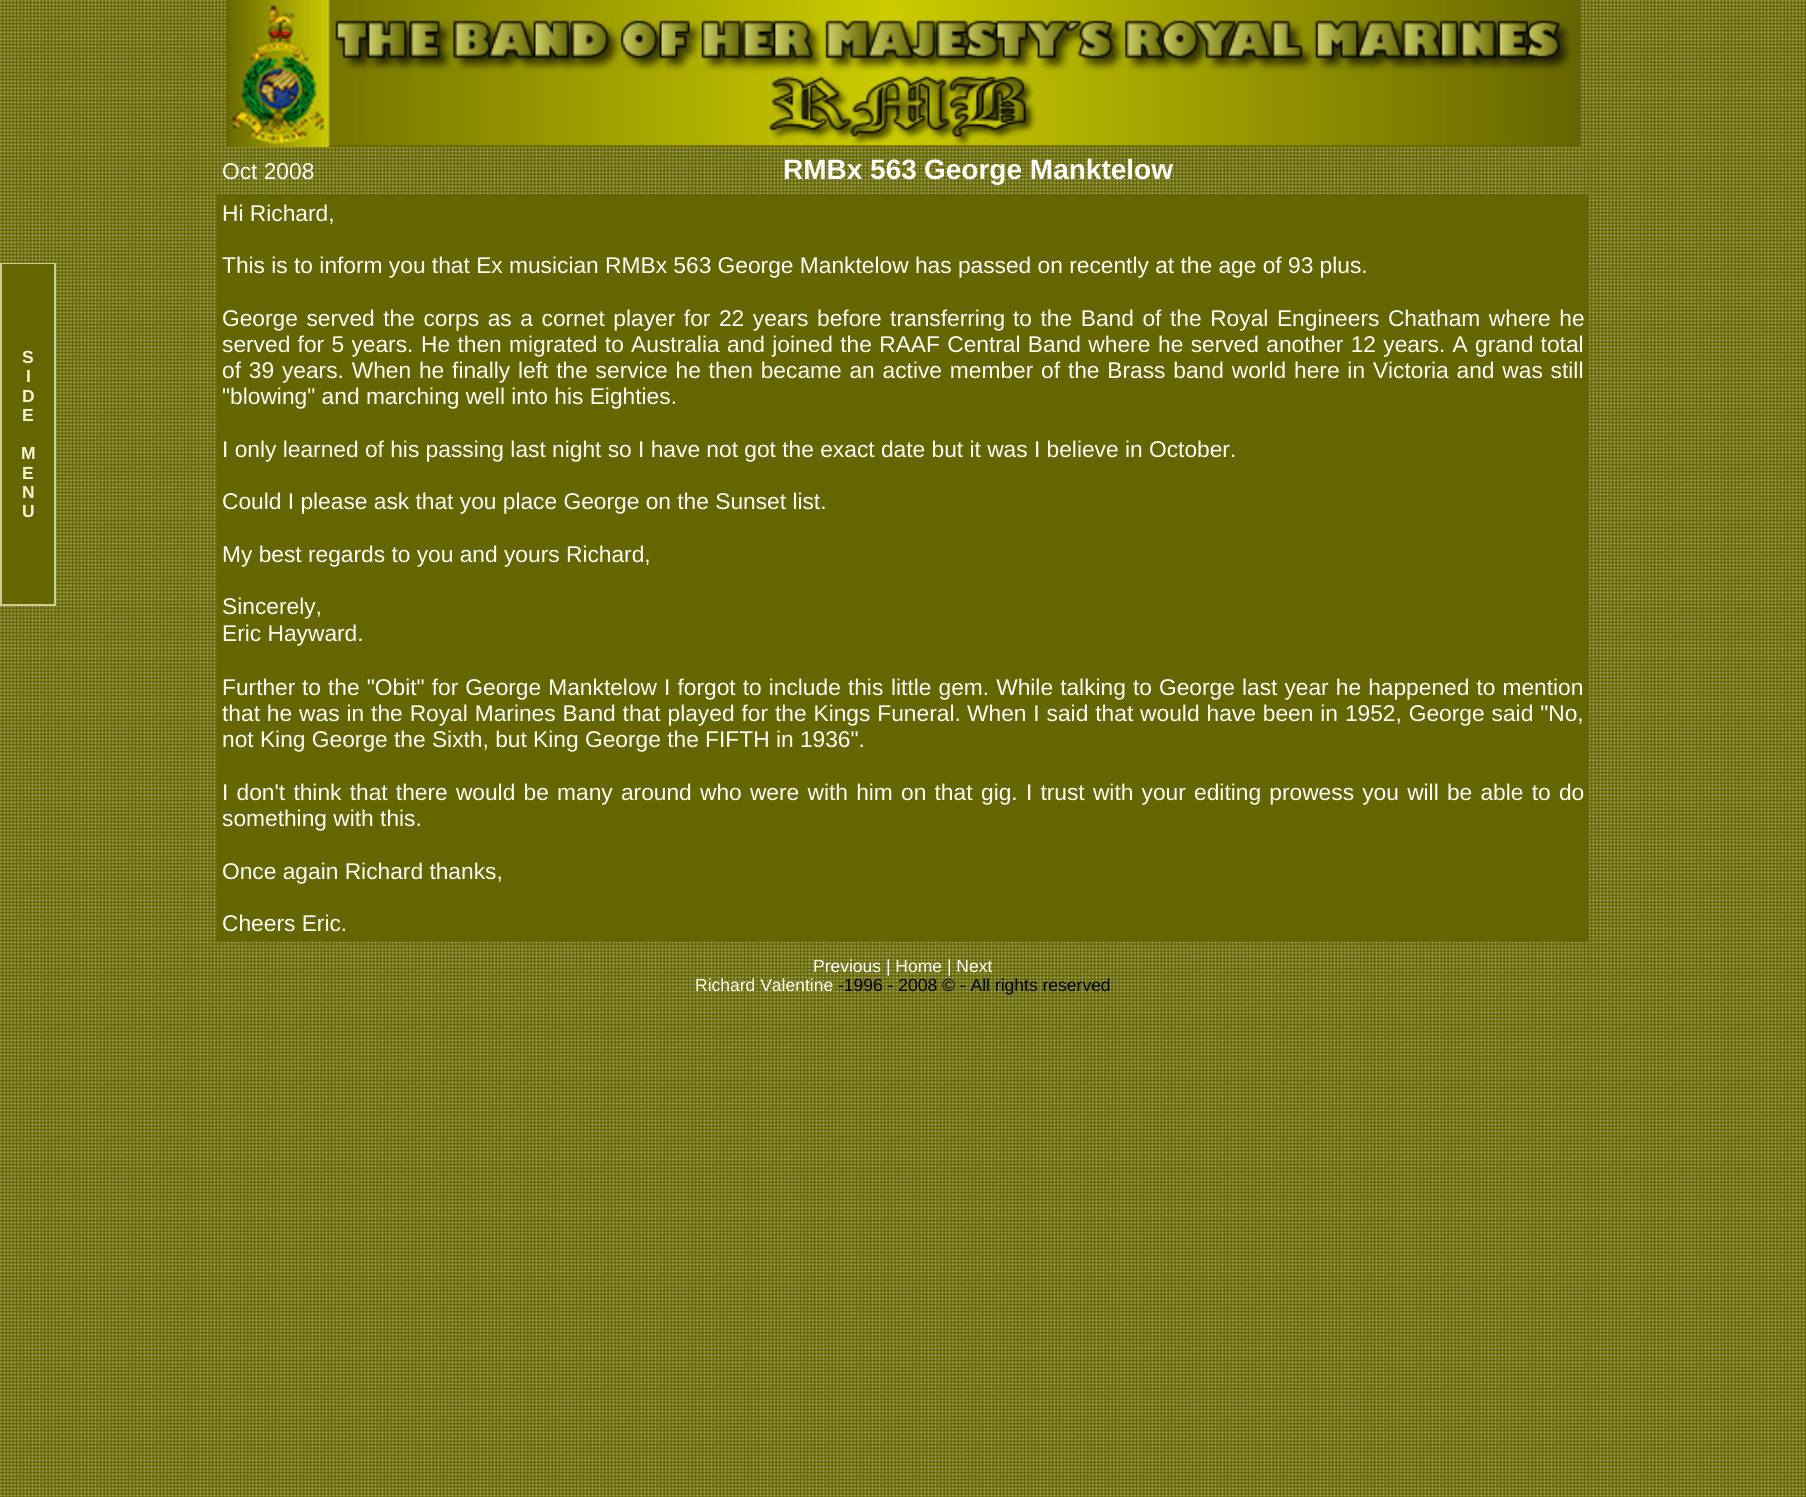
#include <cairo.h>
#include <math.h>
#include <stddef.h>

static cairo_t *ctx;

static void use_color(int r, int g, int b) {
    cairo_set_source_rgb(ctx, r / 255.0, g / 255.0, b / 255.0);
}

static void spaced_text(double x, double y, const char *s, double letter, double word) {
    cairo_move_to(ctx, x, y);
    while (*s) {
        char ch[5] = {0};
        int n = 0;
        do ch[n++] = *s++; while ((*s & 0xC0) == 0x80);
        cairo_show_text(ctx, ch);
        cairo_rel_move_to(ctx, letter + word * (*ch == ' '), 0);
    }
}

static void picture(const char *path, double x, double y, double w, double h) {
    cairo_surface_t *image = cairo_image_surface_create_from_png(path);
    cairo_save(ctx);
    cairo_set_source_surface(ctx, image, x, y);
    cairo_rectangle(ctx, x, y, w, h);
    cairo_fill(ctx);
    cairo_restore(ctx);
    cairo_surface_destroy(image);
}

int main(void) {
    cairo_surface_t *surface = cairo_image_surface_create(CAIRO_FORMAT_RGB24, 1806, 1497);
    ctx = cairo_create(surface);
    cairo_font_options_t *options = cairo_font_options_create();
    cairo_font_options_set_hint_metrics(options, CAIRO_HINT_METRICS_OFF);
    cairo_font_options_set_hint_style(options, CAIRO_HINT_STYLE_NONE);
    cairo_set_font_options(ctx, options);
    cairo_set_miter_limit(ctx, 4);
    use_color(255, 255, 255);
    cairo_paint(ctx);
    picture("img1.png", 0, 0, 1806, 1497);
    picture("img2.png", 225, 0, 1356, 147);
    cairo_select_font_face(ctx, "Liberation Sans", CAIRO_FONT_SLANT_NORMAL, CAIRO_FONT_WEIGHT_NORMAL);
    cairo_set_font_size(ctx, 22.75);
    use_color(255, 255, 255);
    cairo_move_to(ctx, 222, 179);
    cairo_show_text(ctx, "Oct 2008");
    cairo_select_font_face(ctx, "Liberation Sans", CAIRO_FONT_SLANT_NORMAL, CAIRO_FONT_WEIGHT_BOLD);
    cairo_set_font_size(ctx, 28);
    cairo_move_to(ctx, 783, 179);
    cairo_show_text(ctx, "RMBx 563");
    cairo_move_to(ctx, 924, 179);
    cairo_show_text(ctx, "George Manktelow");
    use_color(204, 204, 153);
    cairo_rectangle(ctx, 0, 263, 56, 343);
    cairo_fill(ctx);
    use_color(102, 102, 0);
    cairo_rectangle(ctx, 2, 264, 52, 340);
    cairo_fill(ctx);
    cairo_set_font_size(ctx, 17.5);
    use_color(245, 245, 220);
    cairo_move_to(ctx, 22, 363);
    cairo_show_text(ctx, "S");
    cairo_move_to(ctx, 26, 382);
    cairo_show_text(ctx, "I");
    cairo_move_to(ctx, 22, 402);
    cairo_show_text(ctx, "D");
    cairo_move_to(ctx, 22, 421);
    cairo_show_text(ctx, "E");
    cairo_move_to(ctx, 21, 459);
    cairo_show_text(ctx, "M");
    cairo_move_to(ctx, 22, 479);
    cairo_show_text(ctx, "E");
    cairo_move_to(ctx, 22, 498);
    cairo_show_text(ctx, "N");
    cairo_move_to(ctx, 22, 517);
    cairo_show_text(ctx, "U");
    use_color(102, 102, 0);
    cairo_rectangle(ctx, 217, 194, 1372, 748);
    cairo_fill(ctx);
    cairo_select_font_face(ctx, "Liberation Sans", CAIRO_FONT_SLANT_NORMAL, CAIRO_FONT_WEIGHT_NORMAL);
    cairo_set_font_size(ctx, 22.75);
    use_color(255, 255, 255);
    cairo_move_to(ctx, 222, 221);
    cairo_show_text(ctx, "Hi Richard,");
    cairo_move_to(ctx, 222, 273);
    cairo_show_text(ctx, "This is to inform you that Ex musician RMBx 563 George Manktelow has passed on recently at the age of 93 plus.");
    spaced_text(222, 326, "George served the corps as a cornet player for 22 years before transferring", 0, 2.25);
    spaced_text(1013, 326, "to the Band of the Royal Engineers Chatham where he", 0, 2.25);
    spaced_text(222, 352, "served for 5 years.", 0, 1);
    spaced_text(421, 352, "He then migrated to Australia and joined the RAAF Central Band where", 0, 1);
    spaced_text(1158, 352, "he served another 12 years. A grand total", 0, 1);
    spaced_text(222, 378, "of 39 years. When he finally", 0, 1.5);
    spaced_text(518, 378, "left the service he then became an active member of the Brass band world", 0, 1.5);
    spaced_text(1294, 378, "here in Victoria and was still", 0, 1.5);
    cairo_move_to(ctx, 222, 404);
    cairo_show_text(ctx, "\"blowing\" and marching well into his Eighties.");
    cairo_move_to(ctx, 222, 457);
    cairo_show_text(ctx, "I only learned of his passing last night so I have not got the exact date but it was I believe in October.");
    cairo_move_to(ctx, 222, 509);
    cairo_show_text(ctx, "Could I please ask that you place George on the Sunset list.");
    cairo_move_to(ctx, 222, 562);
    cairo_show_text(ctx, "My best regards to you and yours Richard,");
    cairo_move_to(ctx, 222, 614);
    cairo_show_text(ctx, "Sincerely,");
    cairo_move_to(ctx, 222, 641);
    cairo_show_text(ctx, "Eric Hayward.");
    cairo_move_to(ctx, 222, 695);
    cairo_show_text(ctx, "Further");
    spaced_text(302, 695, "to the \"Obit\" for George Manktelow I forgot to include this", 0, 0.75);
    spaced_text(891, 695, "little gem. While talking to George last year he happened to mention", 0, 0.75);
    spaced_text(222, 721, "that he was in the Royal Marines Band that played for the Kings Funeral.", 0, 0.6);
    spaced_text(967, 721, "When I said that would have been in 1952, George said \"No,", 0, 0.6);
    cairo_move_to(ctx, 222, 747);
    cairo_show_text(ctx, "not King George the Sixth, but King George the FIFTH in 1936\".");
    spaced_text(222, 800, "I don't think that there would be many around who were with him on that", 0, 1.9);
    spaced_text(981, 800, "gig. I trust with your editing prowess you will be able to do", 0, 1.9);
    cairo_move_to(ctx, 222, 826);
    cairo_show_text(ctx, "something with this.");
    cairo_move_to(ctx, 222, 879);
    cairo_show_text(ctx, "Once again Richard thanks,");
    cairo_move_to(ctx, 222, 931);
    cairo_show_text(ctx, "Cheers Eric.");
    cairo_set_font_size(ctx, 17.5);
    cairo_move_to(ctx, 813, 972);
    cairo_show_text(ctx, "Previous | Home | Next");
    cairo_move_to(ctx, 695, 991);
    cairo_show_text(ctx, "Richard Valentine");
    use_color(0, 0, 0);
    cairo_move_to(ctx, 838, 991);
    cairo_show_text(ctx, "-1996 - 2008 © - All rights reserved");
    cairo_surface_write_to_png(surface, "result.png");
    cairo_font_options_destroy(options);
    cairo_destroy(ctx);
    cairo_surface_destroy(surface);
    return 0;
}
